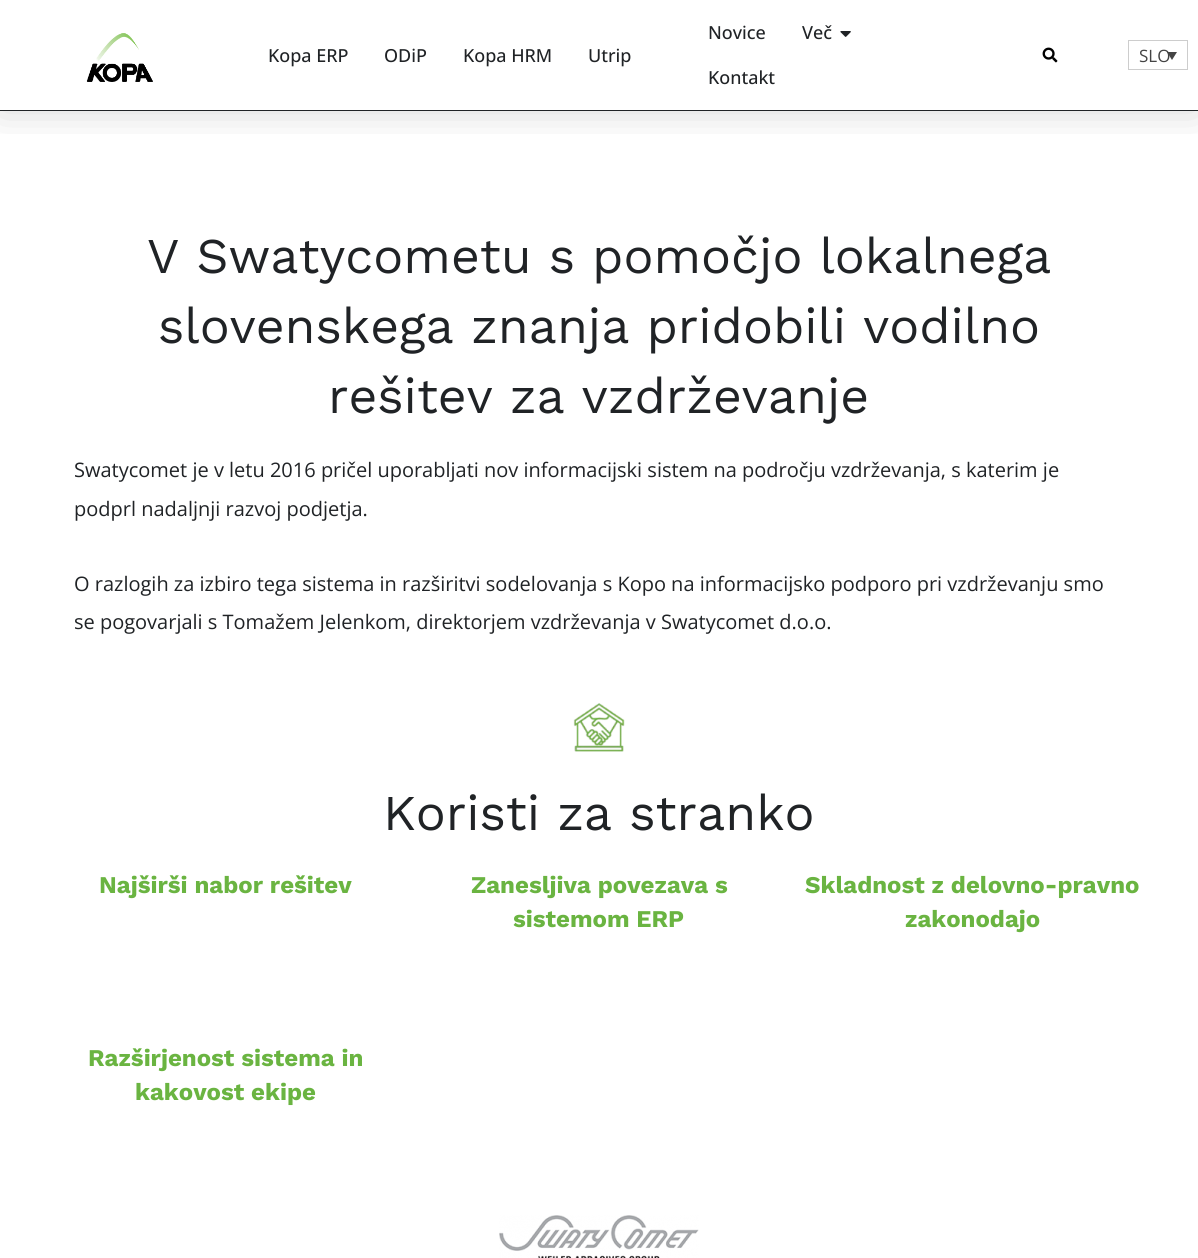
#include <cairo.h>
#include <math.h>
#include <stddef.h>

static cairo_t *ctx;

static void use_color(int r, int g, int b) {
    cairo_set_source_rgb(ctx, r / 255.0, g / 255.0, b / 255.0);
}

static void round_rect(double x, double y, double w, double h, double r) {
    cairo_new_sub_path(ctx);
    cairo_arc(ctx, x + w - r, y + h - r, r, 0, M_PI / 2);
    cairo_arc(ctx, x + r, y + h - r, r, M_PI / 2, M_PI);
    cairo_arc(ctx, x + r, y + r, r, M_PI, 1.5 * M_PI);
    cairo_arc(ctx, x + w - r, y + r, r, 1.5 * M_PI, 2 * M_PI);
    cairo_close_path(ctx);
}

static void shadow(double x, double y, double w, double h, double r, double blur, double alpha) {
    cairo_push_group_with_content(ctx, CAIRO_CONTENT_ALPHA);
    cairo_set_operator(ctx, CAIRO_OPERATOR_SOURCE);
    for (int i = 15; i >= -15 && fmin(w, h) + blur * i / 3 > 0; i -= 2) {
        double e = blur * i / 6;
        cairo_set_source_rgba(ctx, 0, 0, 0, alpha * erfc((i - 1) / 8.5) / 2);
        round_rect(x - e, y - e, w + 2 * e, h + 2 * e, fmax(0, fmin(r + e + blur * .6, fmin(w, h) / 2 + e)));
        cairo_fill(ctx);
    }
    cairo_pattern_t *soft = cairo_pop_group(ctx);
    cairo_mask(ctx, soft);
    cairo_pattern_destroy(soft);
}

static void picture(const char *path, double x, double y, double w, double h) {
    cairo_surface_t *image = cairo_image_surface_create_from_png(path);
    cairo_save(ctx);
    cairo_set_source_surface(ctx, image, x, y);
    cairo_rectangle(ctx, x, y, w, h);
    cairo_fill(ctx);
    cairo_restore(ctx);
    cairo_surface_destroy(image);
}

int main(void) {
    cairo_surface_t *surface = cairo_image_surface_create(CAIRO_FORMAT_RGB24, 1198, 1258);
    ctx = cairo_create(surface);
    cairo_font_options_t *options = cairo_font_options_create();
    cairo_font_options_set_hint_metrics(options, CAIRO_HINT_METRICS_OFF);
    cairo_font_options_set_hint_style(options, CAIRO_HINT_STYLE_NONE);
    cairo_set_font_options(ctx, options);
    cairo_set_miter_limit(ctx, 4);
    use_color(255, 255, 255);
    cairo_paint(ctx);
    cairo_save(ctx);
    cairo_rectangle(ctx, 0, 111, 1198, 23);
    cairo_clip(ctx);
    use_color(0, 0, 0);
    shadow(0, 0, 1198, 111, 0, 20, 0.16);
    cairo_restore(ctx);
    use_color(32, 35, 38);
    cairo_rectangle(ctx, 0, 110, 1198, 1);
    cairo_fill(ctx);
    picture("img1.png", 86, 33, 67, 49);
    cairo_select_font_face(ctx, "Open Sans Medium", CAIRO_FONT_SLANT_NORMAL, CAIRO_FONT_WEIGHT_NORMAL);
    cairo_set_font_size(ctx, 18);
    cairo_move_to(ctx, 268, 62);
    cairo_show_text(ctx, "Kopa ERP");
    cairo_move_to(ctx, 384, 62);
    cairo_show_text(ctx, "ODiP");
    cairo_move_to(ctx, 463, 62);
    cairo_show_text(ctx, "Kopa HRM");
    cairo_move_to(ctx, 588, 62);
    cairo_show_text(ctx, "Utrip");
    cairo_move_to(ctx, 708, 39);
    cairo_show_text(ctx, "Novice");
    cairo_move_to(ctx, 802, 39);
    cairo_show_text(ctx, "Več");
    picture("img2.png", 840, 31, 11, 6);
    cairo_move_to(ctx, 708, 84);
    cairo_show_text(ctx, "Kontakt");
    picture("img3.png", 1042, 47, 16, 16);
    cairo_rectangle(ctx, 1128.5, 40.5, 59, 29);
    use_color(205, 205, 205);
    cairo_set_line_width(ctx, 1);
    cairo_stroke(ctx);
    cairo_select_font_face(ctx, "Open Sans", CAIRO_FONT_SLANT_NORMAL, CAIRO_FONT_WEIGHT_NORMAL);
    cairo_set_font_size(ctx, 17);
    use_color(68, 68, 68);
    cairo_move_to(ctx, 1139, 62);
    cairo_show_text(ctx, "SLO");
    cairo_new_path(ctx);
    cairo_move_to(ctx, 1167, 52);
    cairo_line_to(ctx, 1177, 52);
    cairo_line_to(ctx, 1172, 60);
    cairo_close_path(ctx);
    cairo_fill(ctx);
    cairo_select_font_face(ctx, "Work Sans", CAIRO_FONT_SLANT_NORMAL, CAIRO_FONT_WEIGHT_NORMAL);
    cairo_set_font_size(ctx, 50);
    use_color(32, 35, 38);
    cairo_move_to(ctx, 147, 273);
    cairo_show_text(ctx, "V Swatycometu s pomočjo lokalnega");
    cairo_move_to(ctx, 158, 343);
    cairo_show_text(ctx, "slovenskega znanja pridobili vodilno");
    cairo_move_to(ctx, 328, 413);
    cairo_show_text(ctx, "rešitev za vzdrževanje");
    cairo_select_font_face(ctx, "Open Sans", CAIRO_FONT_SLANT_NORMAL, CAIRO_FONT_WEIGHT_NORMAL);
    cairo_set_font_size(ctx, 20);
    cairo_move_to(ctx, 74, 477);
    cairo_show_text(ctx, "Swatycomet je v letu 2016 pričel uporabljati nov informacijski sistem na področju vzdrževanja, s katerim je");
    cairo_move_to(ctx, 74, 516);
    cairo_show_text(ctx, "podprl nadaljnji razvoj podjetja.");
    cairo_move_to(ctx, 74, 591);
    cairo_show_text(ctx, "O razlogih za izbiro tega sistema in razširitvi sodelovanja s Kopo na informacijsko podporo pri vzdrževanju smo");
    cairo_move_to(ctx, 74, 629);
    cairo_show_text(ctx, "se pogovarjali s Tomažem Jelenkom, direktorjem vzdrževanja v Swatycomet d.o.o.");
    picture("img4.png", 573, 703, 52, 49);
    cairo_select_font_face(ctx, "Work Sans", CAIRO_FONT_SLANT_NORMAL, CAIRO_FONT_WEIGHT_NORMAL);
    cairo_set_font_size(ctx, 50);
    cairo_move_to(ctx, 383, 830);
    cairo_show_text(ctx, "Koristi za stranko");
    cairo_select_font_face(ctx, "Work Sans", CAIRO_FONT_SLANT_NORMAL, CAIRO_FONT_WEIGHT_BOLD);
    cairo_set_font_size(ctx, 24);
    use_color(106, 180, 65);
    cairo_move_to(ctx, 99, 893);
    cairo_show_text(ctx, "Najširši nabor rešitev");
    cairo_move_to(ctx, 471, 893);
    cairo_show_text(ctx, "Zanesljiva povezava s");
    cairo_move_to(ctx, 513, 927);
    cairo_show_text(ctx, "sistemom ERP");
    cairo_move_to(ctx, 805, 893);
    cairo_show_text(ctx, "Skladnost z delovno-pravno");
    cairo_move_to(ctx, 905, 927);
    cairo_show_text(ctx, "zakonodajo");
    cairo_move_to(ctx, 88, 1066);
    cairo_show_text(ctx, "Razširjenost sistema in");
    cairo_move_to(ctx, 135, 1100);
    cairo_show_text(ctx, "kakovost ekipe");
    picture("img5.png", 499, 1215, 200, 43);
    cairo_surface_write_to_png(surface, "result.png");
    cairo_font_options_destroy(options);
    cairo_destroy(ctx);
    cairo_surface_destroy(surface);
    return 0;
}
